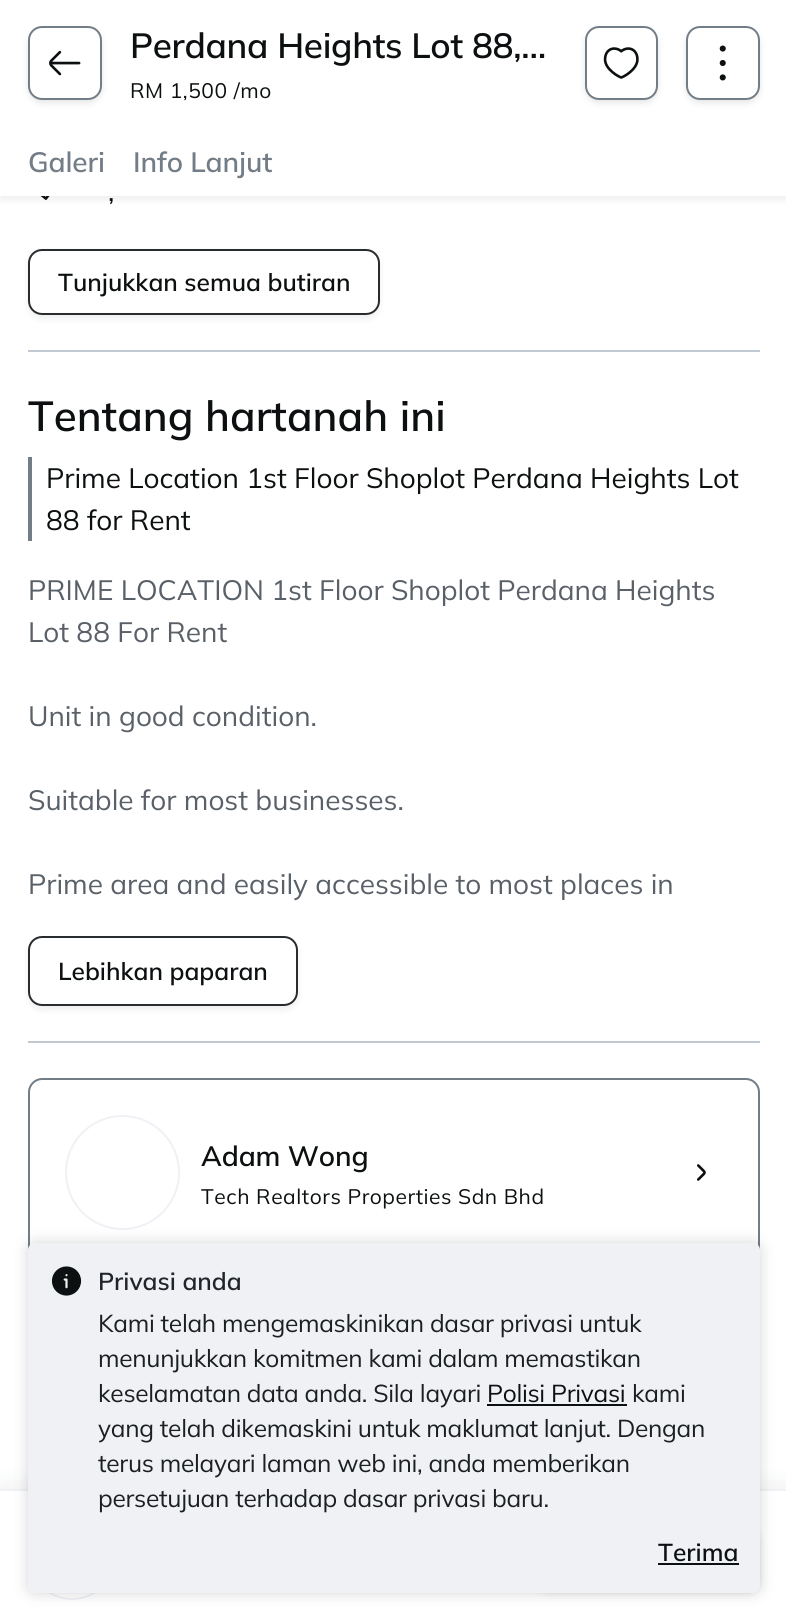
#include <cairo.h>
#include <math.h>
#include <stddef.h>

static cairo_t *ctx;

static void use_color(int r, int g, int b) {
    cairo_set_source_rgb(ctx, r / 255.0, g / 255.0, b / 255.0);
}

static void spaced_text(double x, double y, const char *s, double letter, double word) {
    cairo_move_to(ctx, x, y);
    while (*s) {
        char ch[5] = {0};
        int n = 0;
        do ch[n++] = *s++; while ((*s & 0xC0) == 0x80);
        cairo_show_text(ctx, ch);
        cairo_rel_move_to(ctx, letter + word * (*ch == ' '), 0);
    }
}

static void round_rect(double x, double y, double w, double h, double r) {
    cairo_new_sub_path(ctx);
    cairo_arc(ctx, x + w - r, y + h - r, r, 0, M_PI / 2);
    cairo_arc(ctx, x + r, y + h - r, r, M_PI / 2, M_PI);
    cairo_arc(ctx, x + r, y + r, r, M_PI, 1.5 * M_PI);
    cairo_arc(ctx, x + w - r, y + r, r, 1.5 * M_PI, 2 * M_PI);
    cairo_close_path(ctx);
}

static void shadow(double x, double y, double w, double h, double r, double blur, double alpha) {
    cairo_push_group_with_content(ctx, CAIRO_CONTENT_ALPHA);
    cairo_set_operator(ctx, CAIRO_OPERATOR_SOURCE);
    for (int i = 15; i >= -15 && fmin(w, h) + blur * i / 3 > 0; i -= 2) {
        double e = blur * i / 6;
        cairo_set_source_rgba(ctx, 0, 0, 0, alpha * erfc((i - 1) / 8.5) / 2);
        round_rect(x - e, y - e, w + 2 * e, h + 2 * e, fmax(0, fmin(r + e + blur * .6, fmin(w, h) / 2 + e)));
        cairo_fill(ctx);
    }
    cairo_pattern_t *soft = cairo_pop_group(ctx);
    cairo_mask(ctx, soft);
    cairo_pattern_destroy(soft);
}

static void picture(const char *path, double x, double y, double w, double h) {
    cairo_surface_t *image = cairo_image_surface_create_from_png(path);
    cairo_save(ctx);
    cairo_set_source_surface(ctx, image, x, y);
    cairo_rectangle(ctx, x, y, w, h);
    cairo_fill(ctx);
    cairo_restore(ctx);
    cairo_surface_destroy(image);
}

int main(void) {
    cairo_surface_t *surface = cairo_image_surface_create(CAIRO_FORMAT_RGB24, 786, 1619);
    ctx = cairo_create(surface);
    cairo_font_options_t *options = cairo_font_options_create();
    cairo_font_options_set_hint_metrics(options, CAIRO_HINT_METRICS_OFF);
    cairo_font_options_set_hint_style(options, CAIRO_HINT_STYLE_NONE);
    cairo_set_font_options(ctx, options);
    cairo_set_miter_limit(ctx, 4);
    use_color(255, 255, 255);
    cairo_paint(ctx);
    picture("img4.png", 40, 196, 10, 4);
    use_color(40, 44, 46);
    shadow(0, 4, 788, 196, 0, 3.5, 0.08);
    use_color(255, 255, 255);
    cairo_rectangle(ctx, 0, 0, 786, 196);
    cairo_fill(ctx);
    use_color(40, 44, 46);
    shadow(28, 30, 74, 73, 14, 3.5, 0.12);
    use_color(255, 255, 255);
    round_rect(29, 27, 72, 72, 13);
    cairo_fill_preserve(ctx);
    use_color(115, 125, 135);
    cairo_stroke(ctx);
    picture("img1.png", 49, 50, 32, 26);
    cairo_select_font_face(ctx, "Mulish SemiBold", CAIRO_FONT_SLANT_NORMAL, CAIRO_FONT_WEIGHT_NORMAL);
    cairo_set_font_size(ctx, 35);
    use_color(13, 16, 17);
    spaced_text(130, 58, "Perdana Heights Lot 88,…", -0.28, 0);
    cairo_select_font_face(ctx, "Mulish", CAIRO_FONT_SLANT_NORMAL, CAIRO_FONT_WEIGHT_NORMAL);
    cairo_set_font_size(ctx, 21);
    spaced_text(130, 98, "RM 1,500 /mo", 0.55, 0);
    use_color(40, 44, 46);
    shadow(585, 30, 73, 73, 14, 3.5, 0.12);
    use_color(255, 255, 255);
    round_rect(586, 27, 71, 72, 13);
    cairo_fill_preserve(ctx);
    use_color(115, 125, 135);
    cairo_stroke(ctx);
    picture("img2.png", 603, 47, 36, 32);
    use_color(40, 44, 46);
    shadow(686, 30, 74, 73, 14, 3.5, 0.12);
    use_color(255, 255, 255);
    round_rect(687, 27, 72, 72, 13);
    cairo_fill_preserve(ctx);
    use_color(115, 125, 135);
    cairo_stroke(ctx);
    picture("img3.png", 719, 45, 7, 36);
    cairo_select_font_face(ctx, "Mulish SemiBold", CAIRO_FONT_SLANT_NORMAL, CAIRO_FONT_WEIGHT_NORMAL);
    cairo_set_font_size(ctx, 28);
    spaced_text(28, 172, "Galeri", -0.1, 0);
    spaced_text(133, 172, "Info Lanjut", -0.1, 0);
    cairo_select_font_face(ctx, "Mulish", CAIRO_FONT_SLANT_NORMAL, CAIRO_FONT_WEIGHT_NORMAL);
    use_color(13, 16, 17);
    cairo_move_to(ctx, 108, 201);
    cairo_show_text(ctx, ",");
    cairo_save(ctx);
    cairo_set_fill_rule(ctx, CAIRO_FILL_RULE_EVEN_ODD);
    cairo_new_path(ctx);
    cairo_move_to(ctx, 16, 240);
    cairo_line_to(ctx, 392, 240);
    cairo_line_to(ctx, 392, 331);
    cairo_line_to(ctx, 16, 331);
    cairo_close_path(ctx);
    cairo_move_to(ctx, 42, 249);
    cairo_line_to(ctx, 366, 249);
    cairo_curve_to(ctx, 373.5, 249, 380, 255.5, 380, 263);
    cairo_line_to(ctx, 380, 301);
    cairo_curve_to(ctx, 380, 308.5, 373.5, 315, 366, 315);
    cairo_line_to(ctx, 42, 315);
    cairo_curve_to(ctx, 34.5, 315, 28, 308.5, 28, 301);
    cairo_line_to(ctx, 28, 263);
    cairo_curve_to(ctx, 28, 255.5, 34.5, 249, 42, 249);
    cairo_close_path(ctx);
    cairo_clip(ctx);
    use_color(40, 44, 46);
    shadow(28, 252, 352, 67, 14, 3.5, 0.08);
    cairo_restore(ctx);
    round_rect(29, 250, 350, 64, 13);
    use_color(40, 44, 46);
    cairo_stroke(ctx);
    cairo_select_font_face(ctx, "Mulish SemiBold", CAIRO_FONT_SLANT_NORMAL, CAIRO_FONT_WEIGHT_NORMAL);
    cairo_set_font_size(ctx, 24.5);
    use_color(13, 16, 17);
    cairo_move_to(ctx, 58, 291);
    cairo_show_text(ctx, "Tunjukkan semua butiran");
    use_color(193, 201, 210);
    cairo_rectangle(ctx, 28, 350, 732, 2);
    cairo_fill(ctx);
    cairo_set_font_size(ctx, 42);
    use_color(13, 16, 17);
    spaced_text(28, 431, "Tentang hartanah ini", 0.1, 0);
    use_color(115, 125, 135);
    cairo_rectangle(ctx, 28, 457, 4, 84);
    cairo_fill(ctx);
    cairo_select_font_face(ctx, "Mulish", CAIRO_FONT_SLANT_NORMAL, CAIRO_FONT_WEIGHT_NORMAL);
    cairo_set_font_size(ctx, 28);
    use_color(13, 16, 17);
    cairo_move_to(ctx, 46, 488);
    cairo_show_text(ctx, "Prime Location 1st Floor Shoplot Perdana Heights Lot");
    cairo_move_to(ctx, 46, 530);
    cairo_show_text(ctx, "88 for Rent");
    use_color(90, 96, 103);
    cairo_move_to(ctx, 28, 600);
    cairo_show_text(ctx, "PRIME LOCATION 1st Floor Shoplot Perdana Heights");
    cairo_move_to(ctx, 28, 642);
    cairo_show_text(ctx, "Lot 88 For Rent");
    cairo_move_to(ctx, 28, 726);
    cairo_show_text(ctx, "Unit in good condition.");
    cairo_move_to(ctx, 28, 810);
    cairo_show_text(ctx, "Suitable for most businesses.");
    cairo_move_to(ctx, 28, 894);
    cairo_show_text(ctx, "Prime area and easily accessible to most places in");
    cairo_save(ctx);
    cairo_set_fill_rule(ctx, CAIRO_FILL_RULE_EVEN_ODD);
    cairo_new_path(ctx);
    cairo_move_to(ctx, 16, 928);
    cairo_line_to(ctx, 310, 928);
    cairo_line_to(ctx, 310, 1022);
    cairo_line_to(ctx, 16, 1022);
    cairo_close_path(ctx);
    cairo_move_to(ctx, 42, 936);
    cairo_line_to(ctx, 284, 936);
    cairo_curve_to(ctx, 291.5, 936, 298, 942.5, 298, 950);
    cairo_line_to(ctx, 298, 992);
    cairo_curve_to(ctx, 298, 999.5, 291.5, 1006, 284, 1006);
    cairo_line_to(ctx, 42, 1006);
    cairo_curve_to(ctx, 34.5, 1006, 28, 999.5, 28, 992);
    cairo_line_to(ctx, 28, 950);
    cairo_curve_to(ctx, 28, 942.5, 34.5, 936, 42, 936);
    cairo_close_path(ctx);
    cairo_clip(ctx);
    use_color(40, 44, 46);
    shadow(28, 940, 270, 70, 14, 3.5, 0.08);
    cairo_restore(ctx);
    round_rect(29, 937, 268, 68, 13);
    use_color(40, 44, 46);
    cairo_stroke(ctx);
    cairo_select_font_face(ctx, "Mulish SemiBold", CAIRO_FONT_SLANT_NORMAL, CAIRO_FONT_WEIGHT_NORMAL);
    cairo_set_font_size(ctx, 24.5);
    use_color(13, 16, 17);
    cairo_move_to(ctx, 58, 980);
    cairo_show_text(ctx, "Lebihkan paparan");
    use_color(193, 201, 210);
    cairo_rectangle(ctx, 28, 1041, 732, 2);
    cairo_fill(ctx);
    cairo_new_path(ctx);
    cairo_move_to(ctx, 42, 1079);
    cairo_line_to(ctx, 746, 1079);
    cairo_curve_to(ctx, 753, 1079, 759, 1085, 759, 1092);
    cairo_line_to(ctx, 759, 1599);
    cairo_line_to(ctx, 29, 1599);
    cairo_line_to(ctx, 29, 1092);
    cairo_curve_to(ctx, 29, 1085, 35, 1079, 42, 1079);
    cairo_close_path(ctx);
    use_color(115, 125, 135);
    cairo_stroke(ctx);
    cairo_arc(ctx, 122.5, 1172.5, 56.5, 0, 2 * M_PI);
    use_color(239, 241, 245);
    cairo_stroke(ctx);
    cairo_set_font_size(ctx, 28);
    use_color(13, 16, 17);
    spaced_text(201, 1166, "Adam Wong", -0.1, 0);
    cairo_select_font_face(ctx, "Mulish", CAIRO_FONT_SLANT_NORMAL, CAIRO_FONT_WEIGHT_NORMAL);
    cairo_set_font_size(ctx, 21);
    spaced_text(201, 1204, "Tech Realtors Properties Sdn Bhd", 0.55, 0);
    picture("img5.png", 697, 1164, 9, 17);
    use_color(40, 44, 46);
    shadow(0, 1486, 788, 131, 0, 12, 0.08);
    use_color(255, 255, 255);
    cairo_rectangle(ctx, 0, 1491, 786, 128);
    cairo_fill(ctx);
    use_color(239, 241, 245);
    cairo_rectangle(ctx, 0, 1489, 786, 2);
    cairo_fill(ctx);
    cairo_arc(ctx, 72, 1556, 43, 0, 2 * M_PI);
    cairo_stroke(ctx);
    use_color(44, 44, 44);
    shadow(28, 1243, 732, 350, 7, 7, 0.2);
    use_color(40, 44, 46);
    shadow(534, 1526, 226, 67, 14, 3.5, 0.12);
    use_color(239, 241, 245);
    round_rect(28, 1243, 732, 350, 7);
    cairo_fill(ctx);
    picture("img6.png", 51, 1266, 31, 30);
    cairo_select_font_face(ctx, "Mulish SemiBold", CAIRO_FONT_SLANT_NORMAL, CAIRO_FONT_WEIGHT_NORMAL);
    cairo_set_font_size(ctx, 24.5);
    use_color(33, 37, 41);
    cairo_move_to(ctx, 98, 1290);
    cairo_show_text(ctx, "Privasi anda");
    cairo_select_font_face(ctx, "Mulish", CAIRO_FONT_SLANT_NORMAL, CAIRO_FONT_WEIGHT_NORMAL);
    use_color(28, 31, 34);
    spaced_text(98, 1332, "Kami telah mengemaskinikan dasar privasi untuk", -0.28, 0);
    spaced_text(98, 1367, "menunjukkan komitmen kami dalam memastikan", -0.28, 0);
    spaced_text(98, 1402, "keselamatan data anda. Sila layari", -0.28, 0);
    use_color(13, 16, 17);
    spaced_text(487, 1402, "Polisi Privasi", -0.28, 0);
    cairo_rectangle(ctx, 487, 1404, 140, 2);
    cairo_fill(ctx);
    use_color(28, 31, 34);
    spaced_text(632, 1402, "kami", -0.28, 0);
    spaced_text(98, 1437, "yang telah dikemaskini untuk maklumat lanjut. Dengan", -0.28, 0);
    spaced_text(98, 1472, "terus melayari laman web ini, anda memberikan", -0.28, 0);
    spaced_text(98, 1507, "persetujuan terhadap dasar privasi baru.", -0.28, 0);
    cairo_select_font_face(ctx, "Mulish SemiBold", CAIRO_FONT_SLANT_NORMAL, CAIRO_FONT_WEIGHT_NORMAL);
    use_color(13, 16, 17);
    cairo_move_to(ctx, 658, 1561);
    cairo_show_text(ctx, "Terima");
    cairo_rectangle(ctx, 658, 1563, 81, 2);
    cairo_fill(ctx);
    cairo_surface_write_to_png(surface, "result.png");
    cairo_font_options_destroy(options);
    cairo_destroy(ctx);
    cairo_surface_destroy(surface);
    return 0;
}
